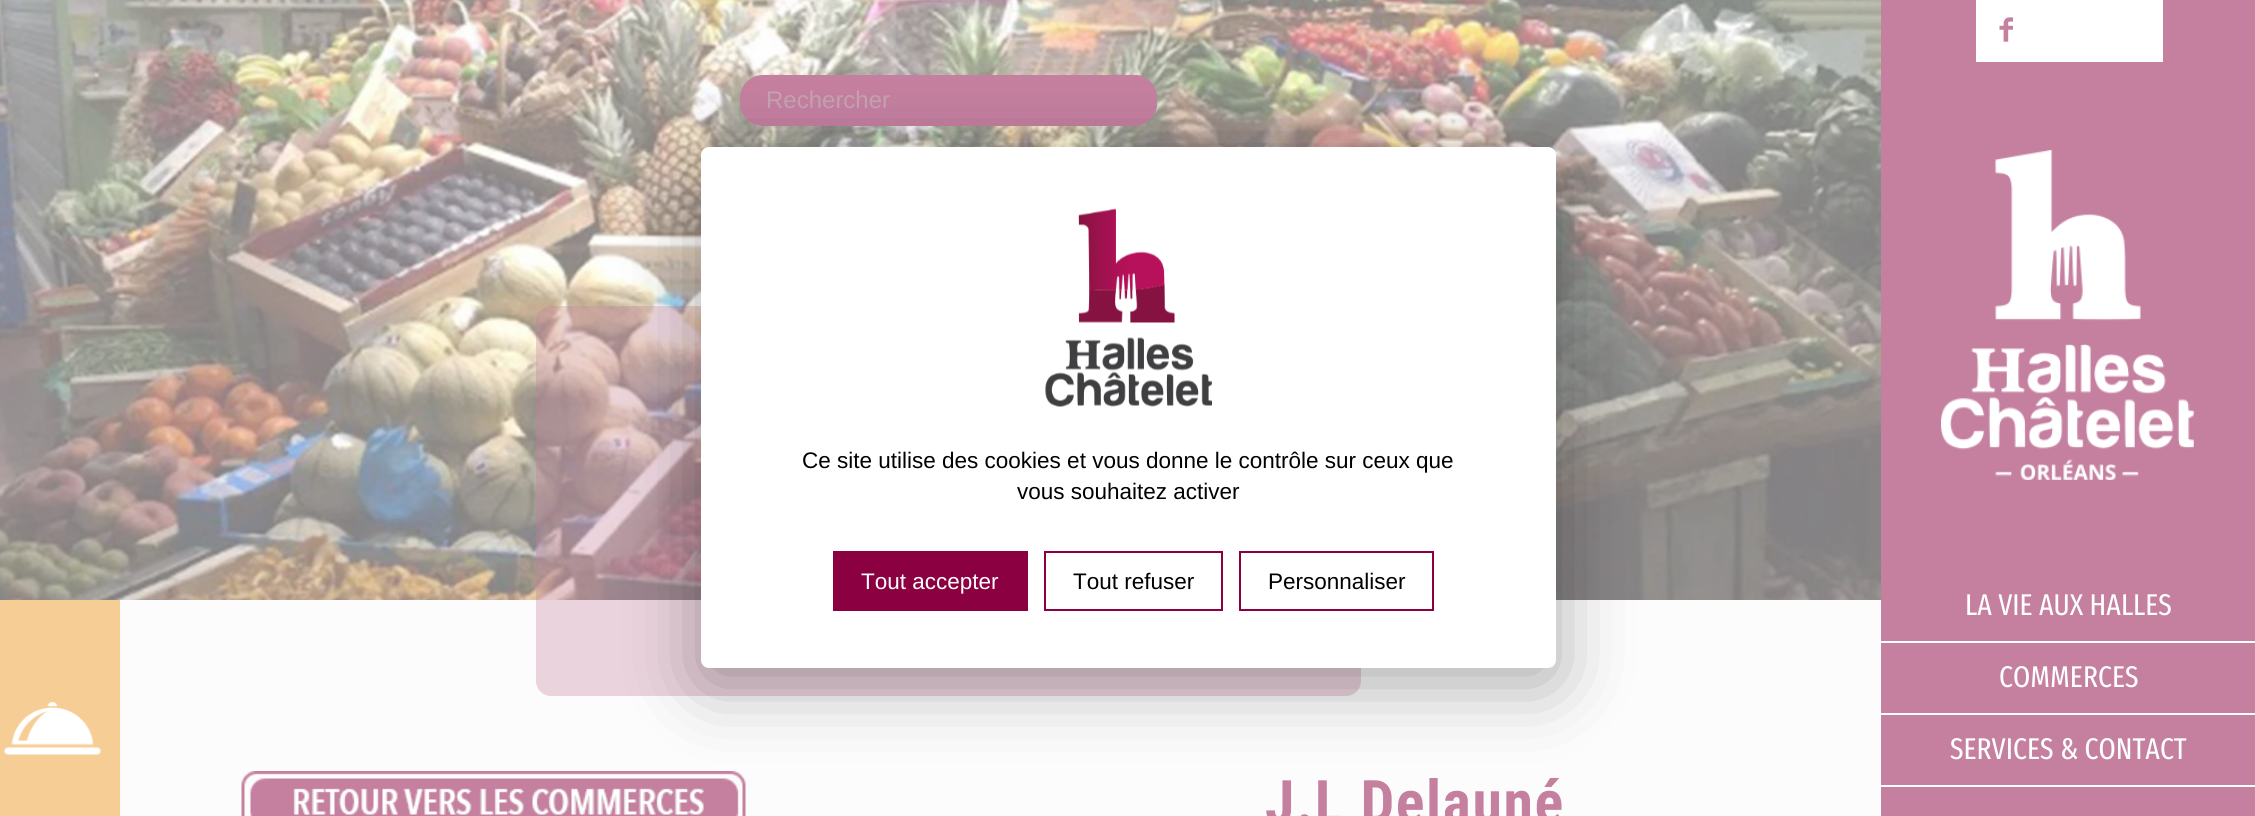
#include <cairo.h>
#include <math.h>
#include <stddef.h>

static cairo_t *ctx;

static void use_color(int r, int g, int b) {
    cairo_set_source_rgb(ctx, r / 255.0, g / 255.0, b / 255.0);
}

static void spaced_text(double x, double y, const char *s, double letter, double word) {
    cairo_move_to(ctx, x, y);
    while (*s) {
        char ch[5] = {0};
        int n = 0;
        do ch[n++] = *s++; while ((*s & 0xC0) == 0x80);
        cairo_show_text(ctx, ch);
        cairo_rel_move_to(ctx, letter + word * (*ch == ' '), 0);
    }
}

static void round_rect(double x, double y, double w, double h, double r) {
    cairo_new_sub_path(ctx);
    cairo_arc(ctx, x + w - r, y + h - r, r, 0, M_PI / 2);
    cairo_arc(ctx, x + r, y + h - r, r, M_PI / 2, M_PI);
    cairo_arc(ctx, x + r, y + r, r, M_PI, 1.5 * M_PI);
    cairo_arc(ctx, x + w - r, y + r, r, 1.5 * M_PI, 2 * M_PI);
    cairo_close_path(ctx);
}

static void shadow(double x, double y, double w, double h, double r, double blur, double alpha) {
    cairo_push_group_with_content(ctx, CAIRO_CONTENT_ALPHA);
    cairo_set_operator(ctx, CAIRO_OPERATOR_SOURCE);
    for (int i = 15; i >= -15 && fmin(w, h) + blur * i / 3 > 0; i -= 2) {
        double e = blur * i / 6;
        cairo_set_source_rgba(ctx, 0, 0, 0, alpha * erfc((i - 1) / 8.5) / 2);
        round_rect(x - e, y - e, w + 2 * e, h + 2 * e, fmax(0, fmin(r + e + blur * .6, fmin(w, h) / 2 + e)));
        cairo_fill(ctx);
    }
    cairo_pattern_t *soft = cairo_pop_group(ctx);
    cairo_mask(ctx, soft);
    cairo_pattern_destroy(soft);
}

static void picture(const char *path, double x, double y, double w, double h) {
    cairo_surface_t *image = cairo_image_surface_create_from_png(path);
    cairo_save(ctx);
    cairo_set_source_surface(ctx, image, x, y);
    cairo_rectangle(ctx, x, y, w, h);
    cairo_fill(ctx);
    cairo_restore(ctx);
    cairo_surface_destroy(image);
}

int main(void) {
    cairo_surface_t *surface = cairo_image_surface_create(CAIRO_FORMAT_RGB24, 2255, 816);
    ctx = cairo_create(surface);
    cairo_font_options_t *options = cairo_font_options_create();
    cairo_font_options_set_hint_metrics(options, CAIRO_HINT_METRICS_OFF);
    cairo_font_options_set_hint_style(options, CAIRO_HINT_STYLE_NONE);
    cairo_set_font_options(ctx, options);
    cairo_set_miter_limit(ctx, 4);
    use_color(252, 252, 252);
    cairo_paint(ctx);
    picture("img1.png", 0, 0, 1881, 600);
    use_color(197, 128, 160);
    round_rect(740, 75, 417, 51, 23);
    cairo_fill(ctx);
    cairo_select_font_face(ctx, "Liberation Sans", CAIRO_FONT_SLANT_NORMAL, CAIRO_FONT_WEIGHT_NORMAL);
    cairo_set_font_size(ctx, 24);
    use_color(198, 163, 179);
    cairo_move_to(ctx, 766, 108);
    cairo_show_text(ctx, "Rechercher");
    use_color(197, 128, 160);
    round_rect(1097, 75, 60, 51, 23);
    cairo_fill(ctx);
    cairo_set_source_rgba(ctx, 0.773, 0.502, 0.627, 0.33);
    round_rect(536, 306, 825, 390, 15);
    cairo_fill(ctx);
    use_color(246, 205, 148);
    cairo_rectangle(ctx, 0, 600, 120, 216);
    cairo_fill(ctx);
    picture("img2.png", 4, 702, 97, 53);
    picture("img3.png", 241, 771, 505, 45);
    cairo_select_font_face(ctx, "Roboto Condensed", CAIRO_FONT_SLANT_NORMAL, CAIRO_FONT_WEIGHT_BOLD);
    cairo_set_font_size(ctx, 60);
    use_color(197, 128, 160);
    spaced_text(1265, 823, "J.L Delauné", 1.5, 0);
    cairo_rectangle(ctx, 1881, 0, 374, 816);
    cairo_fill(ctx);
    use_color(255, 255, 255);
    cairo_rectangle(ctx, 1976, 0, 187, 62);
    cairo_fill(ctx);
    picture("img4.png", 1999, 17, 14, 25);
    picture("img5.png", 1941, 150, 253, 330);
    cairo_rectangle(ctx, 1881, 641, 374, 2);
    cairo_fill(ctx);
    cairo_select_font_face(ctx, "Fira Sans Extra Condensed", CAIRO_FONT_SLANT_NORMAL, CAIRO_FONT_WEIGHT_NORMAL);
    cairo_set_font_size(ctx, 30);
    cairo_move_to(ctx, 1965, 615);
    cairo_show_text(ctx, "LA VIE AUX HALLES");
    cairo_rectangle(ctx, 1881, 713, 374, 2);
    cairo_fill(ctx);
    cairo_move_to(ctx, 1999, 687);
    cairo_show_text(ctx, "COMMERCES");
    cairo_rectangle(ctx, 1881, 785, 374, 2);
    cairo_fill(ctx);
    cairo_move_to(ctx, 1950, 759);
    cairo_show_text(ctx, "SERVICES & CONTACT");
    use_color(0, 0, 0);
    shadow(701, 162, 855, 521, 8, 37.5, 0.33);
    use_color(255, 255, 255);
    round_rect(701, 147, 855, 521, 8);
    cairo_fill(ctx);
    picture("img6.png", 1045, 208, 167, 199);
    cairo_select_font_face(ctx, "Liberation Sans", CAIRO_FONT_SLANT_NORMAL, CAIRO_FONT_WEIGHT_NORMAL);
    cairo_set_font_size(ctx, 22.5);
    use_color(0, 0, 0);
    cairo_move_to(ctx, 802, 468);
    cairo_show_text(ctx, "Ce site utilise des cookies et vous donne le contrôle sur ceux que");
    cairo_move_to(ctx, 1017, 499);
    cairo_show_text(ctx, "vous souhaitez activer");
    use_color(139, 0, 65);
    cairo_rectangle(ctx, 833, 551, 195, 60);
    cairo_fill(ctx);
    use_color(255, 255, 255);
    cairo_move_to(ctx, 861, 589);
    cairo_show_text(ctx, "Tout accepter");
    cairo_rectangle(ctx, 1045, 552, 177, 58);
    use_color(139, 0, 65);
    cairo_stroke(ctx);
    use_color(0, 0, 0);
    cairo_move_to(ctx, 1073, 589);
    cairo_show_text(ctx, "Tout refuser");
    cairo_rectangle(ctx, 1240, 552, 193, 58);
    use_color(139, 0, 65);
    cairo_stroke(ctx);
    use_color(0, 0, 0);
    cairo_move_to(ctx, 1268, 589);
    cairo_show_text(ctx, "Personnaliser");
    cairo_surface_write_to_png(surface, "result.png");
    cairo_font_options_destroy(options);
    cairo_destroy(ctx);
    cairo_surface_destroy(surface);
    return 0;
}
